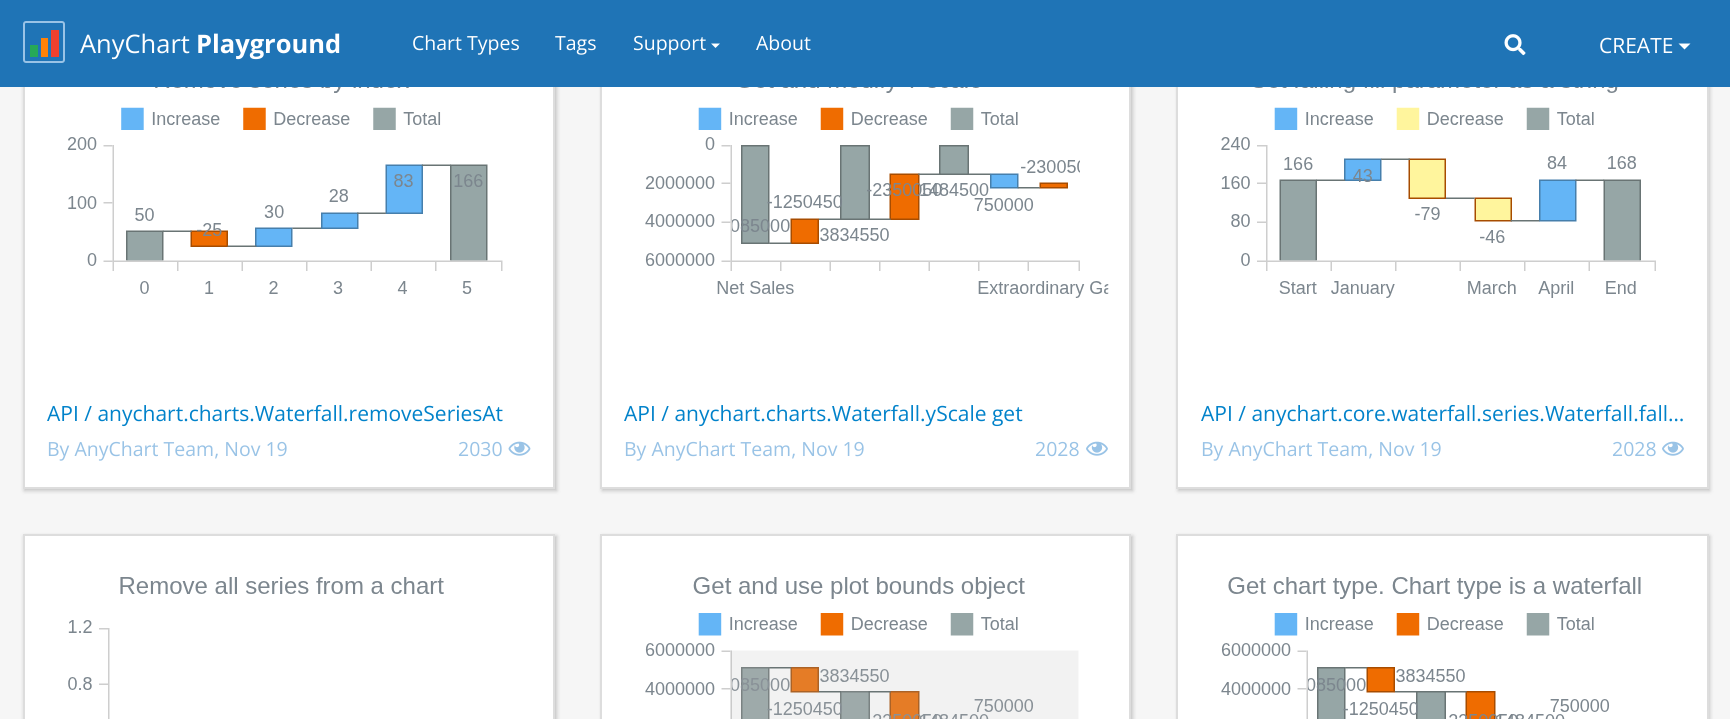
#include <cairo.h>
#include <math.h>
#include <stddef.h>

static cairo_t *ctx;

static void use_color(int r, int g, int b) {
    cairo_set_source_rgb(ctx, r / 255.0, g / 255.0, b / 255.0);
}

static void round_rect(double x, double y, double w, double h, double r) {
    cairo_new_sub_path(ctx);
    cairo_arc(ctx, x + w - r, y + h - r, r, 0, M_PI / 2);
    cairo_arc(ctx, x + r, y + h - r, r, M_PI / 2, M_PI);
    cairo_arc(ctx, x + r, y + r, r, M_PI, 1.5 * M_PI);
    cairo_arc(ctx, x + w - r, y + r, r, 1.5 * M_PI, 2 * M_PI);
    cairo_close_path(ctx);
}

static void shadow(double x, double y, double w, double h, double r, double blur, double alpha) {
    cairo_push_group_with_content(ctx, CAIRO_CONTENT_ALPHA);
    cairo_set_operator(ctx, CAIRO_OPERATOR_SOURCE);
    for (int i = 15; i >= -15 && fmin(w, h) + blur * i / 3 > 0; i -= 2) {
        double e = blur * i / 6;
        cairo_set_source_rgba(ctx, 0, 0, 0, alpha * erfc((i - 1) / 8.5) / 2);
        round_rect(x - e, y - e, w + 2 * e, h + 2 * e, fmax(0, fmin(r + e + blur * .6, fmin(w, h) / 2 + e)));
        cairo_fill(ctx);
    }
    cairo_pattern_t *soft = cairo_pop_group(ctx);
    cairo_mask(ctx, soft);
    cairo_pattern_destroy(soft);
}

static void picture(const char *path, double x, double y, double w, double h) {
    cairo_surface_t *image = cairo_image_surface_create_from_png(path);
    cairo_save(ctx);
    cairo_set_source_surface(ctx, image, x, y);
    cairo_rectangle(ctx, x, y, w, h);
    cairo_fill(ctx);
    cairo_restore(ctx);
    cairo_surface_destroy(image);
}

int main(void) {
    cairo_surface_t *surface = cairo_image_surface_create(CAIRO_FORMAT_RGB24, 1730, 719);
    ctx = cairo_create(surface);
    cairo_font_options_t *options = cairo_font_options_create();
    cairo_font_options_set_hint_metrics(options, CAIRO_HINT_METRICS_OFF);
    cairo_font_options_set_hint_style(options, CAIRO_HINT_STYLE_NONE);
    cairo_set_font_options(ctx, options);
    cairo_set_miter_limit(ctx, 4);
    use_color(246, 246, 246);
    cairo_paint(ctx);
    use_color(0, 0, 0);
    shadow(24, 30, 533, 461, 0, 2, 0.2);
    use_color(255, 255, 255);
    cairo_rectangle(ctx, 25, 87, 528, 400);
    cairo_fill(ctx);
    cairo_rectangle(ctx, 24, 30, 530, 458);
    use_color(221, 221, 221);
    cairo_stroke(ctx);
    use_color(0, 0, 0);
    shadow(602, 30, 531, 461, 0, 2, 0.2);
    use_color(255, 255, 255);
    cairo_rectangle(ctx, 602, 87, 527, 400);
    cairo_fill(ctx);
    cairo_rectangle(ctx, 601, 30, 529, 458);
    use_color(221, 221, 221);
    cairo_stroke(ctx);
    use_color(0, 0, 0);
    shadow(1178, 30, 532, 461, 0, 2, 0.2);
    use_color(255, 255, 255);
    cairo_rectangle(ctx, 1178, 87, 529, 400);
    cairo_fill(ctx);
    cairo_rectangle(ctx, 1177, 30, 531, 458);
    use_color(221, 221, 221);
    cairo_stroke(ctx);
    use_color(31, 116, 182);
    cairo_rectangle(ctx, 0, 0, 1730, 87);
    cairo_fill(ctx);
    round_rect(24, 22, 40, 40, 2);
    use_color(153, 195, 230);
    cairo_stroke(ctx);
    use_color(38, 169, 87);
    cairo_rectangle(ctx, 30, 45, 8, 12);
    cairo_fill(ctx);
    use_color(255, 130, 7);
    cairo_rectangle(ctx, 41, 38, 7, 19);
    cairo_fill(ctx);
    use_color(240, 64, 46);
    cairo_rectangle(ctx, 51, 30, 8, 27);
    cairo_fill(ctx);
    cairo_select_font_face(ctx, "Open Sans", CAIRO_FONT_SLANT_NORMAL, CAIRO_FONT_WEIGHT_NORMAL);
    cairo_set_font_size(ctx, 25.5);
    use_color(255, 255, 255);
    cairo_move_to(ctx, 80, 53);
    cairo_show_text(ctx, "AnyChart");
    cairo_select_font_face(ctx, "Open Sans", CAIRO_FONT_SLANT_NORMAL, CAIRO_FONT_WEIGHT_BOLD);
    cairo_move_to(ctx, 196, 53);
    cairo_show_text(ctx, "Playground");
    cairo_select_font_face(ctx, "Open Sans", CAIRO_FONT_SLANT_NORMAL, CAIRO_FONT_WEIGHT_NORMAL);
    cairo_set_font_size(ctx, 19.5);
    cairo_move_to(ctx, 412, 50);
    cairo_show_text(ctx, "Chart Types");
    cairo_move_to(ctx, 555, 50);
    cairo_show_text(ctx, "Tags");
    cairo_move_to(ctx, 633, 50);
    cairo_show_text(ctx, "Support");
    cairo_new_path(ctx);
    cairo_move_to(ctx, 711, 43.5);
    cairo_line_to(ctx, 720, 43.5);
    cairo_line_to(ctx, 715.5, 48);
    cairo_close_path(ctx);
    cairo_fill(ctx);
    cairo_move_to(ctx, 756, 50);
    cairo_show_text(ctx, "About");
    picture("img1.png", 1504, 34, 22, 22);
    cairo_set_font_size(ctx, 21);
    cairo_move_to(ctx, 1599, 53);
    cairo_show_text(ctx, "CREATE");
    cairo_new_path(ctx);
    cairo_move_to(ctx, 1678.5, 43.5);
    cairo_line_to(ctx, 1690.5, 43.5);
    cairo_line_to(ctx, 1684.5, 49.5);
    cairo_close_path(ctx);
    cairo_fill(ctx);
    picture("img2.png", 67, 87, 436, 207);
    use_color(1, 130, 202);
    cairo_move_to(ctx, 47, 421);
    cairo_show_text(ctx, "API / anychart.charts.Waterfall.removeSeriesAt");
    cairo_set_font_size(ctx, 19.5);
    use_color(153, 195, 230);
    cairo_move_to(ctx, 47, 456);
    cairo_show_text(ctx, "By AnyChart Team, Nov 19");
    cairo_move_to(ctx, 458, 456);
    cairo_show_text(ctx, "2030");
    picture("img3.png", 508, 441, 23, 15);
    picture("img4.png", 645, 87, 464, 211);
    cairo_set_font_size(ctx, 21);
    use_color(1, 130, 202);
    cairo_move_to(ctx, 624, 421);
    cairo_show_text(ctx, "API / anychart.charts.Waterfall.yScale get");
    cairo_set_font_size(ctx, 19.5);
    use_color(153, 195, 230);
    cairo_move_to(ctx, 624, 456);
    cairo_show_text(ctx, "By AnyChart Team, Nov 19");
    cairo_move_to(ctx, 1035, 456);
    cairo_show_text(ctx, "2028");
    picture("img5.png", 1086, 441, 22, 15);
    picture("img6.png", 1221, 87, 435, 211);
    cairo_set_font_size(ctx, 21);
    use_color(1, 130, 202);
    cairo_move_to(ctx, 1201, 421);
    cairo_show_text(ctx, "API / anychart.core.waterfall.series.Waterfall.fall…");
    cairo_set_font_size(ctx, 19.5);
    use_color(153, 195, 230);
    cairo_move_to(ctx, 1201, 456);
    cairo_show_text(ctx, "By AnyChart Team, Nov 19");
    cairo_move_to(ctx, 1612, 456);
    cairo_show_text(ctx, "2028");
    picture("img5.png", 1662, 441, 22, 15);
    use_color(0, 0, 0);
    shadow(24, 536, 533, 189, 0, 2, 0.2);
    use_color(255, 255, 255);
    cairo_rectangle(ctx, 24, 535, 530, 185);
    cairo_fill_preserve(ctx);
    use_color(221, 221, 221);
    cairo_stroke(ctx);
    picture("img7.png", 68, 577, 376, 142);
    use_color(0, 0, 0);
    shadow(602, 536, 531, 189, 0, 2, 0.2);
    use_color(255, 255, 255);
    cairo_rectangle(ctx, 601, 535, 529, 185);
    cairo_fill_preserve(ctx);
    use_color(221, 221, 221);
    cairo_stroke(ctx);
    picture("img8.png", 645, 577, 434, 142);
    use_color(0, 0, 0);
    shadow(1178, 536, 532, 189, 0, 2, 0.2);
    use_color(255, 255, 255);
    cairo_rectangle(ctx, 1177, 535, 531, 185);
    cairo_fill_preserve(ctx);
    use_color(221, 221, 221);
    cairo_stroke(ctx);
    picture("img9.png", 1221, 577, 420, 142);
    cairo_surface_write_to_png(surface, "result.png");
    cairo_font_options_destroy(options);
    cairo_destroy(ctx);
    cairo_surface_destroy(surface);
    return 0;
}
